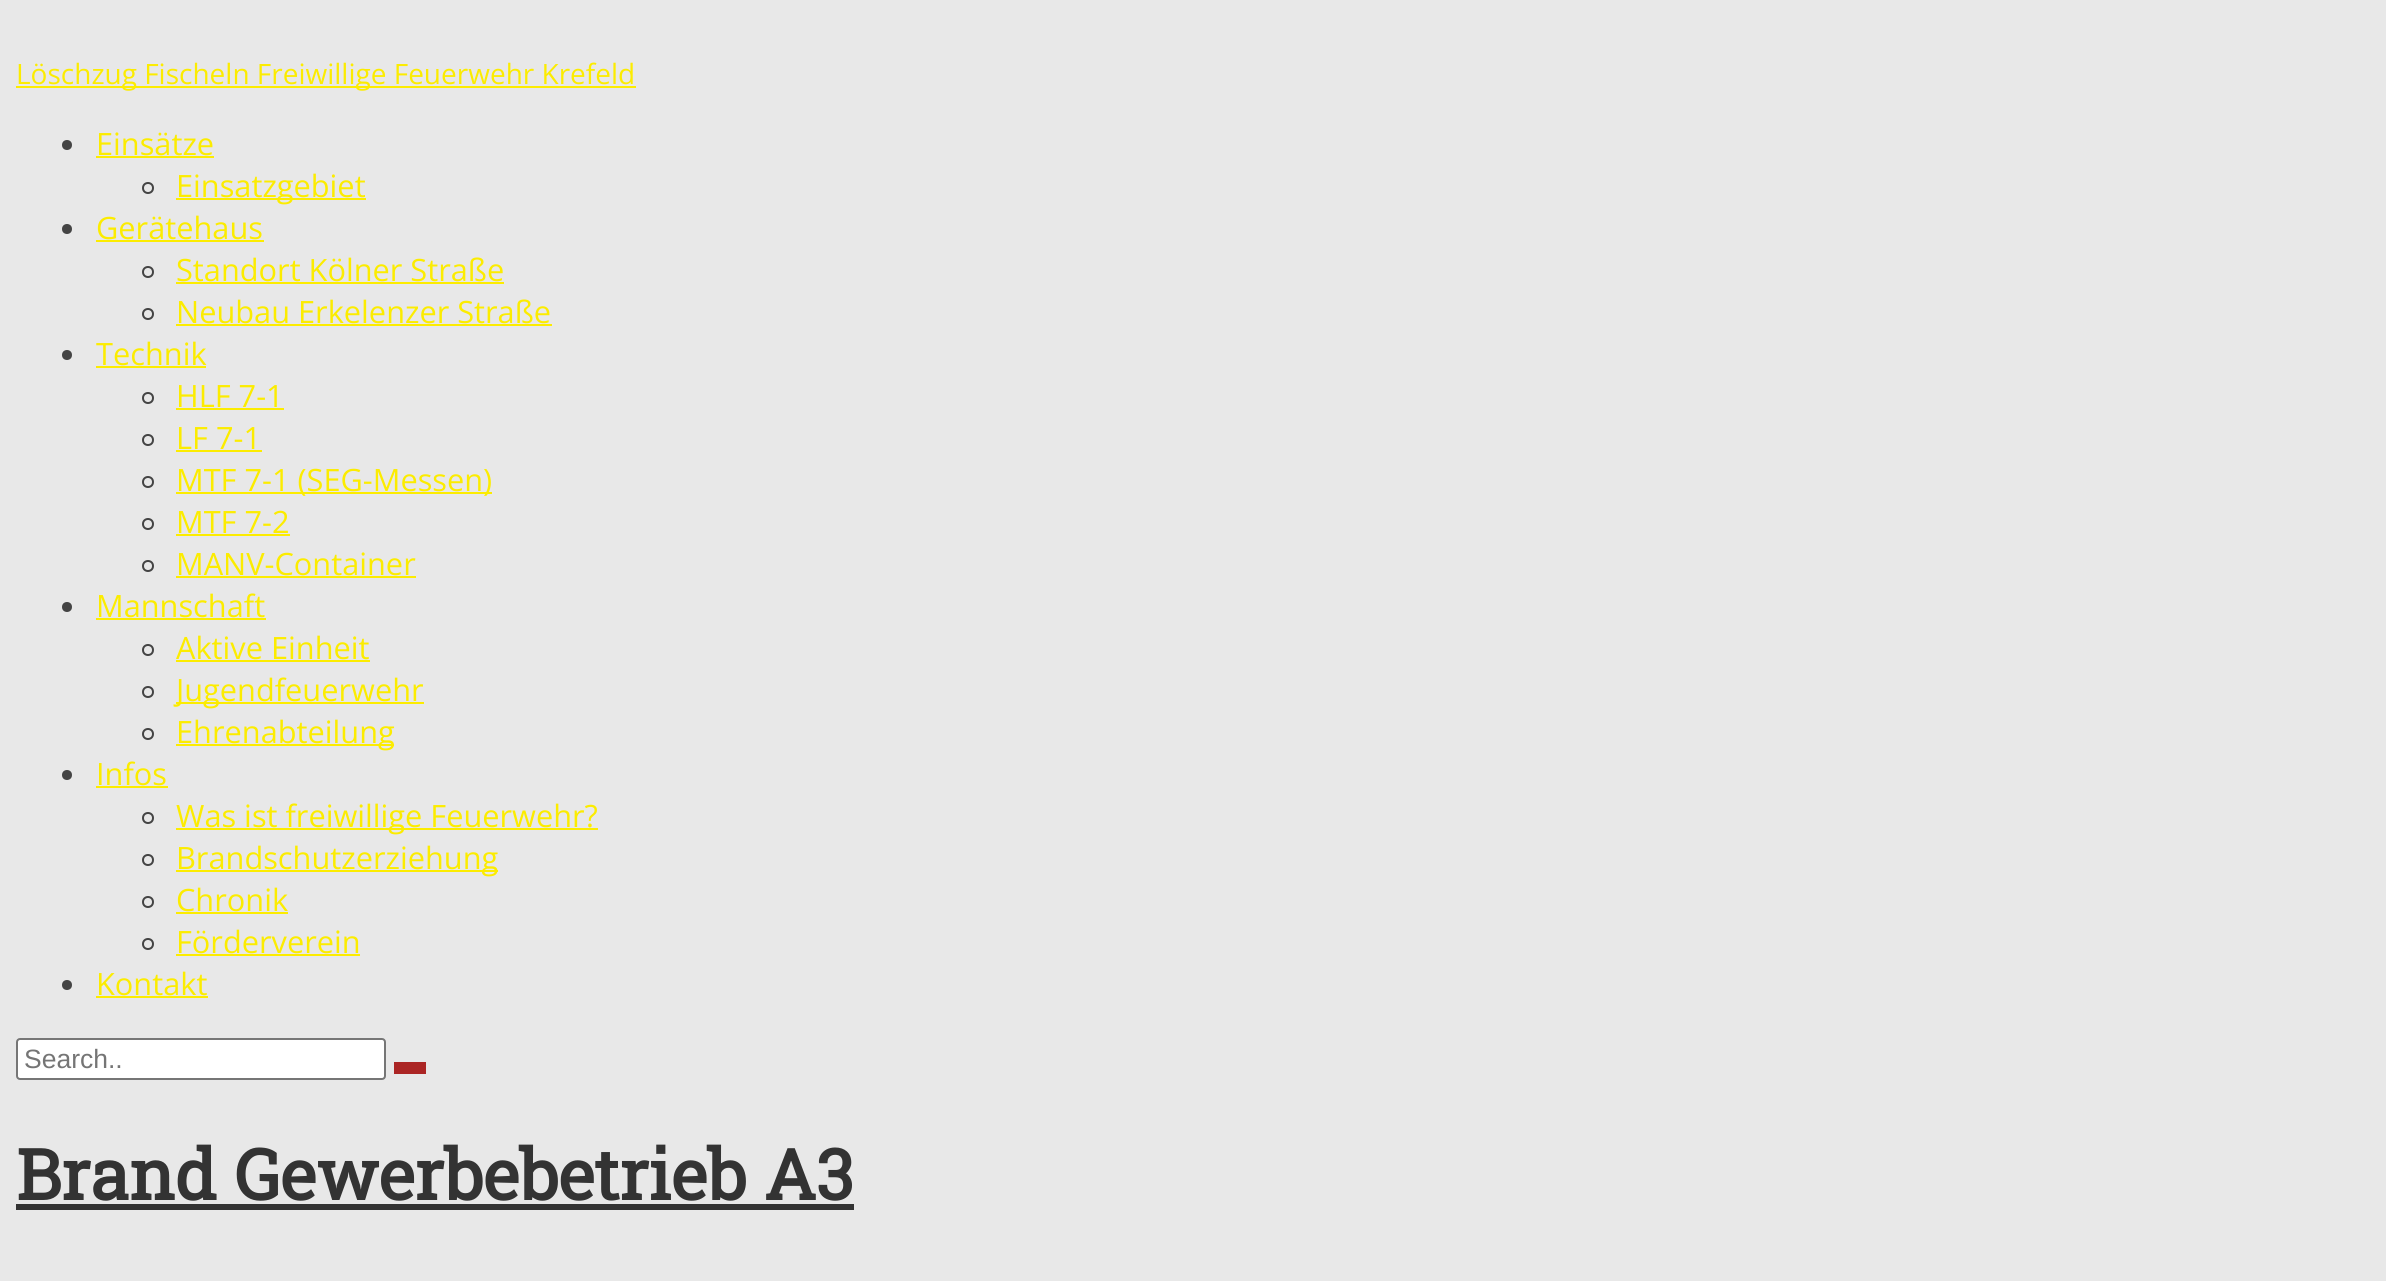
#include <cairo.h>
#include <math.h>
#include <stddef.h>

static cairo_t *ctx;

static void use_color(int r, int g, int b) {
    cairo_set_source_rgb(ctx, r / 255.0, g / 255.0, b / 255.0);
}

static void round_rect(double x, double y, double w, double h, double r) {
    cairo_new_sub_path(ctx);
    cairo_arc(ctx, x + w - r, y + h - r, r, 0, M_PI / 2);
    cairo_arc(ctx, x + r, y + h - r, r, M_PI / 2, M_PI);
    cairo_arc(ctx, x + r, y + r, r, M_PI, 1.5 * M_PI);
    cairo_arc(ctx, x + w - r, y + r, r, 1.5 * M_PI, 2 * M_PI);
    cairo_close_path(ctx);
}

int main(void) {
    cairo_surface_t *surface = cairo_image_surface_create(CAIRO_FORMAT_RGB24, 2386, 1281);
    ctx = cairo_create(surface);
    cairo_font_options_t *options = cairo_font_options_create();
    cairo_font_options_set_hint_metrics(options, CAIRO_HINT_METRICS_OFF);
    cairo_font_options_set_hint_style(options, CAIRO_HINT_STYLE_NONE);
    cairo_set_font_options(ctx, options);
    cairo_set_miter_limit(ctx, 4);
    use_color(232, 232, 232);
    cairo_paint(ctx);
    use_color(252, 236, 0);
    cairo_rectangle(ctx, 16, 86, 620, 2);
    cairo_fill(ctx);
    cairo_select_font_face(ctx, "Open Sans", CAIRO_FONT_SLANT_NORMAL, CAIRO_FONT_WEIGHT_NORMAL);
    cairo_set_font_size(ctx, 28);
    cairo_move_to(ctx, 16, 84);
    cairo_show_text(ctx, "Löschzug Fischeln Freiwillige Feuerwehr Krefeld");
    use_color(68, 68, 68);
    cairo_new_path(ctx);
    cairo_arc(ctx, 67, 145, 5, 0, 2 * M_PI);
    cairo_fill(ctx);
    cairo_set_font_size(ctx, 30.75);
    use_color(252, 236, 0);
    cairo_move_to(ctx, 96, 155);
    cairo_show_text(ctx, "Einsätze");
    cairo_rectangle(ctx, 96, 156, 118, 2);
    cairo_fill(ctx);
    cairo_arc(ctx, 148, 188, 5, 0, 2 * M_PI);
    use_color(68, 68, 68);
    cairo_stroke(ctx);
    use_color(252, 236, 0);
    cairo_rectangle(ctx, 176, 198, 190, 2);
    cairo_fill(ctx);
    cairo_move_to(ctx, 176, 197);
    cairo_show_text(ctx, "Einsatzgebiet");
    use_color(68, 68, 68);
    cairo_new_path(ctx);
    cairo_arc(ctx, 67, 229, 5, 0, 2 * M_PI);
    cairo_fill(ctx);
    use_color(252, 236, 0);
    cairo_move_to(ctx, 96, 239);
    cairo_show_text(ctx, "Gerätehaus");
    cairo_rectangle(ctx, 96, 240, 168, 2);
    cairo_fill(ctx);
    cairo_arc(ctx, 148, 272, 5, 0, 2 * M_PI);
    use_color(68, 68, 68);
    cairo_stroke(ctx);
    use_color(252, 236, 0);
    cairo_move_to(ctx, 176, 281);
    cairo_show_text(ctx, "Standort Kölner Straße");
    cairo_rectangle(ctx, 176, 282, 328, 2);
    cairo_fill(ctx);
    cairo_arc(ctx, 148, 314, 5, 0, 2 * M_PI);
    use_color(68, 68, 68);
    cairo_stroke(ctx);
    use_color(252, 236, 0);
    cairo_move_to(ctx, 176, 323);
    cairo_show_text(ctx, "Neubau Erkelenzer Straße");
    cairo_rectangle(ctx, 176, 324, 376, 2);
    cairo_fill(ctx);
    use_color(68, 68, 68);
    cairo_arc(ctx, 67, 355, 5, 0, 2 * M_PI);
    cairo_fill(ctx);
    use_color(252, 236, 0);
    cairo_move_to(ctx, 96, 365);
    cairo_show_text(ctx, "Technik");
    cairo_rectangle(ctx, 96, 366, 110, 2);
    cairo_fill(ctx);
    cairo_arc(ctx, 148, 398, 5, 0, 2 * M_PI);
    use_color(68, 68, 68);
    cairo_stroke(ctx);
    use_color(252, 236, 0);
    cairo_move_to(ctx, 176, 407);
    cairo_show_text(ctx, "HLF 7-1");
    cairo_rectangle(ctx, 176, 408, 108, 2);
    cairo_fill(ctx);
    cairo_arc(ctx, 148, 440, 5, 0, 2 * M_PI);
    use_color(68, 68, 68);
    cairo_stroke(ctx);
    use_color(252, 236, 0);
    cairo_move_to(ctx, 176, 449);
    cairo_show_text(ctx, "LF 7-1");
    cairo_rectangle(ctx, 176, 450, 86, 2);
    cairo_fill(ctx);
    cairo_arc(ctx, 148, 482, 5, 0, 2 * M_PI);
    use_color(68, 68, 68);
    cairo_stroke(ctx);
    use_color(252, 236, 0);
    cairo_rectangle(ctx, 176, 492, 316, 2);
    cairo_fill(ctx);
    cairo_move_to(ctx, 176, 491);
    cairo_show_text(ctx, "MTF 7-1 (SEG-Messen)");
    cairo_new_path(ctx);
    cairo_arc(ctx, 148, 524, 5, 0, 2 * M_PI);
    use_color(68, 68, 68);
    cairo_stroke(ctx);
    use_color(252, 236, 0);
    cairo_move_to(ctx, 176, 533);
    cairo_show_text(ctx, "MTF 7-2");
    cairo_rectangle(ctx, 176, 534, 114, 2);
    cairo_fill(ctx);
    cairo_arc(ctx, 148, 566, 5, 0, 2 * M_PI);
    use_color(68, 68, 68);
    cairo_stroke(ctx);
    use_color(252, 236, 0);
    cairo_move_to(ctx, 176, 575);
    cairo_show_text(ctx, "MANV-Container");
    cairo_rectangle(ctx, 176, 576, 240, 2);
    cairo_fill(ctx);
    use_color(68, 68, 68);
    cairo_arc(ctx, 67, 607, 5, 0, 2 * M_PI);
    cairo_fill(ctx);
    use_color(252, 236, 0);
    cairo_move_to(ctx, 96, 617);
    cairo_show_text(ctx, "Mannschaft");
    cairo_rectangle(ctx, 96, 618, 170, 2);
    cairo_fill(ctx);
    cairo_arc(ctx, 148, 650, 5, 0, 2 * M_PI);
    use_color(68, 68, 68);
    cairo_stroke(ctx);
    use_color(252, 236, 0);
    cairo_move_to(ctx, 176, 659);
    cairo_show_text(ctx, "Aktive Einheit");
    cairo_rectangle(ctx, 176, 660, 194, 2);
    cairo_fill(ctx);
    cairo_arc(ctx, 148, 692, 5, 0, 2 * M_PI);
    use_color(68, 68, 68);
    cairo_stroke(ctx);
    use_color(252, 236, 0);
    cairo_rectangle(ctx, 176, 702, 248, 2);
    cairo_fill(ctx);
    cairo_move_to(ctx, 176, 701);
    cairo_show_text(ctx, "Jugendfeuerwehr");
    cairo_new_path(ctx);
    cairo_arc(ctx, 148, 734, 5, 0, 2 * M_PI);
    use_color(68, 68, 68);
    cairo_stroke(ctx);
    use_color(252, 236, 0);
    cairo_rectangle(ctx, 176, 744, 218, 2);
    cairo_fill(ctx);
    cairo_move_to(ctx, 176, 743);
    cairo_show_text(ctx, "Ehrenabteilung");
    use_color(68, 68, 68);
    cairo_new_path(ctx);
    cairo_arc(ctx, 67, 775, 5, 0, 2 * M_PI);
    cairo_fill(ctx);
    use_color(252, 236, 0);
    cairo_move_to(ctx, 96, 785);
    cairo_show_text(ctx, "Infos");
    cairo_rectangle(ctx, 96, 786, 72, 2);
    cairo_fill(ctx);
    cairo_arc(ctx, 148, 818, 5, 0, 2 * M_PI);
    use_color(68, 68, 68);
    cairo_stroke(ctx);
    use_color(252, 236, 0);
    cairo_rectangle(ctx, 176, 828, 422, 2);
    cairo_fill(ctx);
    cairo_move_to(ctx, 176, 827);
    cairo_show_text(ctx, "Was ist freiwillige Feuerwehr?");
    cairo_new_path(ctx);
    cairo_arc(ctx, 148, 860, 5, 0, 2 * M_PI);
    use_color(68, 68, 68);
    cairo_stroke(ctx);
    use_color(252, 236, 0);
    cairo_rectangle(ctx, 176, 870, 322, 2);
    cairo_fill(ctx);
    cairo_move_to(ctx, 176, 869);
    cairo_show_text(ctx, "Brandschutzerziehung");
    cairo_new_path(ctx);
    cairo_arc(ctx, 148, 902, 5, 0, 2 * M_PI);
    use_color(68, 68, 68);
    cairo_stroke(ctx);
    use_color(252, 236, 0);
    cairo_move_to(ctx, 176, 911);
    cairo_show_text(ctx, "Chronik");
    cairo_rectangle(ctx, 176, 912, 112, 2);
    cairo_fill(ctx);
    cairo_arc(ctx, 148, 944, 5, 0, 2 * M_PI);
    use_color(68, 68, 68);
    cairo_stroke(ctx);
    use_color(252, 236, 0);
    cairo_move_to(ctx, 176, 953);
    cairo_show_text(ctx, "Förderverein");
    cairo_rectangle(ctx, 176, 954, 184, 2);
    cairo_fill(ctx);
    use_color(68, 68, 68);
    cairo_arc(ctx, 67, 985, 5, 0, 2 * M_PI);
    cairo_fill(ctx);
    use_color(252, 236, 0);
    cairo_move_to(ctx, 96, 995);
    cairo_show_text(ctx, "Kontakt");
    cairo_rectangle(ctx, 96, 996, 112, 2);
    cairo_fill(ctx);
    use_color(255, 255, 255);
    round_rect(17, 1039, 368, 40, 3);
    cairo_fill_preserve(ctx);
    use_color(118, 118, 118);
    cairo_stroke(ctx);
    cairo_select_font_face(ctx, "Liberation Sans", CAIRO_FONT_SLANT_NORMAL, CAIRO_FONT_WEIGHT_NORMAL);
    cairo_set_font_size(ctx, 26.5);
    use_color(117, 117, 117);
    cairo_move_to(ctx, 24, 1068);
    cairo_show_text(ctx, "Search..");
    use_color(171, 37, 36);
    cairo_rectangle(ctx, 394, 1062, 32, 12);
    cairo_fill(ctx);
    cairo_select_font_face(ctx, "Roboto Slab", CAIRO_FONT_SLANT_NORMAL, CAIRO_FONT_WEIGHT_BOLD);
    cairo_set_font_size(ctx, 70);
    use_color(51, 51, 51);
    cairo_move_to(ctx, 16, 1200);
    cairo_show_text(ctx, "Brand Gewerbebetrieb A3");
    cairo_rectangle(ctx, 16, 1204, 838, 6);
    cairo_fill(ctx);
    cairo_surface_write_to_png(surface, "result.png");
    cairo_font_options_destroy(options);
    cairo_destroy(ctx);
    cairo_surface_destroy(surface);
    return 0;
}
